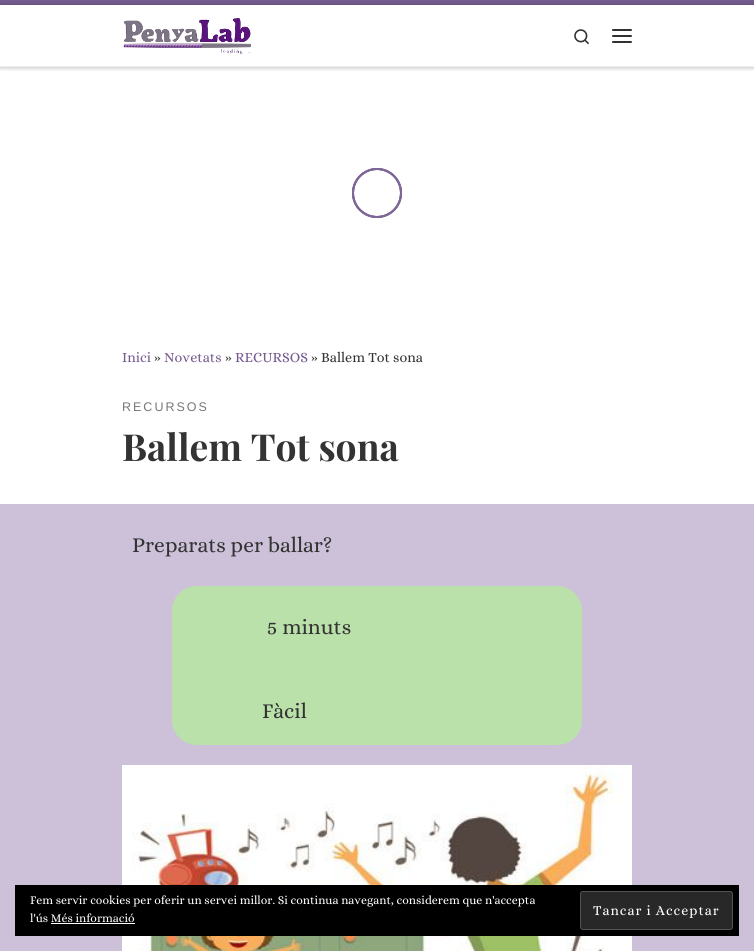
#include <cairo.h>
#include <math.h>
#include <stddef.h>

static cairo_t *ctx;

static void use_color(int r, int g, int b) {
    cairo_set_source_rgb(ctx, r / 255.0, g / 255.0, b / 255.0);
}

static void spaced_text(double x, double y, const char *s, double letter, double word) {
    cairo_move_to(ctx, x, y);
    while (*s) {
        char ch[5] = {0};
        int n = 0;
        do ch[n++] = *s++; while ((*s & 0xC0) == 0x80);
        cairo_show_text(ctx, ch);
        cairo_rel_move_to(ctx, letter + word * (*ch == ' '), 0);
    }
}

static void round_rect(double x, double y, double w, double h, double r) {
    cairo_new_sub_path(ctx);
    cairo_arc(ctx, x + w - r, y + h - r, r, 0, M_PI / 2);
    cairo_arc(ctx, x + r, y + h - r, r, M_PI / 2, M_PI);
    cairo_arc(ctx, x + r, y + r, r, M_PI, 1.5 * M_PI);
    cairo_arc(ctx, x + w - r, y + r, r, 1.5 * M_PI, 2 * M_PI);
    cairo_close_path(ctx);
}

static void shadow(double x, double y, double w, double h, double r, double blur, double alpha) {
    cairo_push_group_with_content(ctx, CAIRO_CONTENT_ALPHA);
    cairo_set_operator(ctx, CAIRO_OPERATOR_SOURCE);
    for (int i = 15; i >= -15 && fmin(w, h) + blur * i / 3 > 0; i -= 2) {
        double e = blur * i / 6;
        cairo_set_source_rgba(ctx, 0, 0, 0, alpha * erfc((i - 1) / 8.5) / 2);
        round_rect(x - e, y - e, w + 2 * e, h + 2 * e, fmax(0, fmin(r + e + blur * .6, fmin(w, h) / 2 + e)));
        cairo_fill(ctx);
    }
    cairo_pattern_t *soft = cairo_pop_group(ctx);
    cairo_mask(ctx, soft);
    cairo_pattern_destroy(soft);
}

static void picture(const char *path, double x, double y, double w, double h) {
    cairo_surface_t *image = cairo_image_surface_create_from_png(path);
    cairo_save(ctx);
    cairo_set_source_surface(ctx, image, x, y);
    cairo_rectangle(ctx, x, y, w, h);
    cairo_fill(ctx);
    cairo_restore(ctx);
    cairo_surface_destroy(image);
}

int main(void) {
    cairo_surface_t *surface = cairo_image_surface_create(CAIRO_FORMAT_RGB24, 754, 951);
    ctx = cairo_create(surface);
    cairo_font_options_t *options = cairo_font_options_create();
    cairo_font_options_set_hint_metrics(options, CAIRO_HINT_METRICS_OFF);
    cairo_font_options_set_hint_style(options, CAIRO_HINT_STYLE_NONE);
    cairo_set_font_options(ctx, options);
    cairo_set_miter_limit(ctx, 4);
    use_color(255, 255, 255);
    cairo_paint(ctx);
    cairo_save(ctx);
    cairo_rectangle(ctx, 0, 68, 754, 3);
    cairo_clip(ctx);
    use_color(102, 102, 102);
    shadow(0, 2, 754, 68, 0, 1, 0.08);
    cairo_restore(ctx);
    use_color(117, 91, 143);
    cairo_rectangle(ctx, 0, 0, 754, 5);
    cairo_fill(ctx);
    use_color(239, 239, 239);
    cairo_rectangle(ctx, 0, 67, 754, 1);
    cairo_fill(ctx);
    cairo_save(ctx);
    cairo_set_fill_rule(ctx, CAIRO_FILL_RULE_EVEN_ODD);
    cairo_new_path(ctx);
    cairo_move_to(ctx, 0, 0);
    cairo_line_to(ctx, 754, 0);
    cairo_line_to(ctx, 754, 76);
    cairo_line_to(ctx, 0, 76);
    cairo_close_path(ctx);
    cairo_move_to(ctx, 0, 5);
    cairo_line_to(ctx, 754, 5);
    cairo_line_to(ctx, 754, 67);
    cairo_line_to(ctx, 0, 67);
    cairo_close_path(ctx);
    cairo_clip(ctx);
    use_color(0, 0, 0);
    shadow(0, 5, 754, 62, 0, 2.5, 0.2);
    cairo_restore(ctx);
    picture("img1.png", 123, 18, 128, 36);
    picture("img2.png", 574, 29, 15, 16);
    use_color(49, 49, 49);
    round_rect(612, 29, 20, 2, 1);
    cairo_fill(ctx);
    round_rect(612, 35, 20, 2, 1);
    cairo_fill(ctx);
    round_rect(612, 41, 20, 2, 1);
    cairo_fill(ctx);
    use_color(240, 240, 240);
    cairo_rectangle(ctx, 0, 66, 754, 1);
    cairo_fill(ctx);
    cairo_arc(ctx, 377, 193, 24, 0, 2 * M_PI);
    use_color(126, 102, 150);
    cairo_stroke(ctx);
    cairo_arc(ctx, 377, 193, 24, 0, 2 * M_PI);
    cairo_stroke(ctx);
    cairo_arc(ctx, 377, 193, 24, 0, 2 * M_PI);
    cairo_stroke(ctx);
    cairo_select_font_face(ctx, "Alice", CAIRO_FONT_SLANT_NORMAL, CAIRO_FONT_WEIGHT_NORMAL);
    cairo_set_font_size(ctx, 14.25);
    use_color(117, 91, 143);
    cairo_move_to(ctx, 122, 362);
    cairo_show_text(ctx, "Inici");
    use_color(51, 51, 51);
    cairo_move_to(ctx, 154, 362);
    cairo_show_text(ctx, "»");
    use_color(117, 91, 143);
    cairo_move_to(ctx, 164, 362);
    cairo_show_text(ctx, "Novetats");
    use_color(51, 51, 51);
    cairo_move_to(ctx, 225, 362);
    cairo_show_text(ctx, "»");
    use_color(117, 91, 143);
    cairo_move_to(ctx, 235, 362);
    cairo_show_text(ctx, "RECURSOS");
    use_color(51, 51, 51);
    cairo_move_to(ctx, 311, 362);
    cairo_show_text(ctx, "» Ballem Tot sona");
    cairo_select_font_face(ctx, "Liberation Sans", CAIRO_FONT_SLANT_NORMAL, CAIRO_FONT_WEIGHT_NORMAL);
    cairo_set_font_size(ctx, 12.5);
    use_color(119, 119, 119);
    spaced_text(122, 411, "RECURSOS", 2, 0);
    cairo_select_font_face(ctx, "Playfair Display", CAIRO_FONT_SLANT_NORMAL, CAIRO_FONT_WEIGHT_BOLD);
    cairo_set_font_size(ctx, 37.25);
    use_color(51, 51, 51);
    cairo_move_to(ctx, 122, 461);
    cairo_show_text(ctx, "Ballem Tot sona");
    use_color(204, 193, 217);
    cairo_rectangle(ctx, 0, 504, 754, 447);
    cairo_fill(ctx);
    cairo_select_font_face(ctx, "Alice", CAIRO_FONT_SLANT_NORMAL, CAIRO_FONT_WEIGHT_NORMAL);
    cairo_set_font_size(ctx, 21.5);
    use_color(51, 51, 51);
    cairo_move_to(ctx, 132, 552);
    cairo_show_text(ctx, "Preparats per ballar?");
    use_color(186, 225, 170);
    round_rect(172, 586, 410, 159, 25);
    cairo_fill(ctx);
    use_color(51, 51, 51);
    cairo_move_to(ctx, 267, 634);
    cairo_show_text(ctx, "5 minuts");
    cairo_move_to(ctx, 262, 718);
    cairo_show_text(ctx, "Fàcil");
    picture("img3.png", 122, 765, 510, 186);
    use_color(0, 0, 0);
    cairo_rectangle(ctx, 15, 885, 724, 51);
    cairo_fill(ctx);
    cairo_set_font_size(ctx, 12);
    use_color(255, 255, 255);
    cairo_move_to(ctx, 30, 904);
    cairo_show_text(ctx, "Fem servir cookies per oferir un servei millor. Si continua navegant, considerem que n'accepta");
    cairo_move_to(ctx, 30, 922);
    cairo_show_text(ctx, "l'ús Més informació");
    use_color(40, 40, 40);
    round_rect(580.5, 891.5, 152, 38, 2.5);
    cairo_fill_preserve(ctx);
    use_color(83, 83, 83);
    cairo_set_line_width(ctx, 1);
    cairo_stroke(ctx);
    cairo_set_font_size(ctx, 14);
    use_color(255, 255, 255);
    spaced_text(593, 915, "Tancar i Acceptar", 1, 0);
    cairo_rectangle(ctx, 51, 923, 84, 1);
    cairo_fill(ctx);
    cairo_surface_write_to_png(surface, "result.png");
    cairo_font_options_destroy(options);
    cairo_destroy(ctx);
    cairo_surface_destroy(surface);
    return 0;
}
